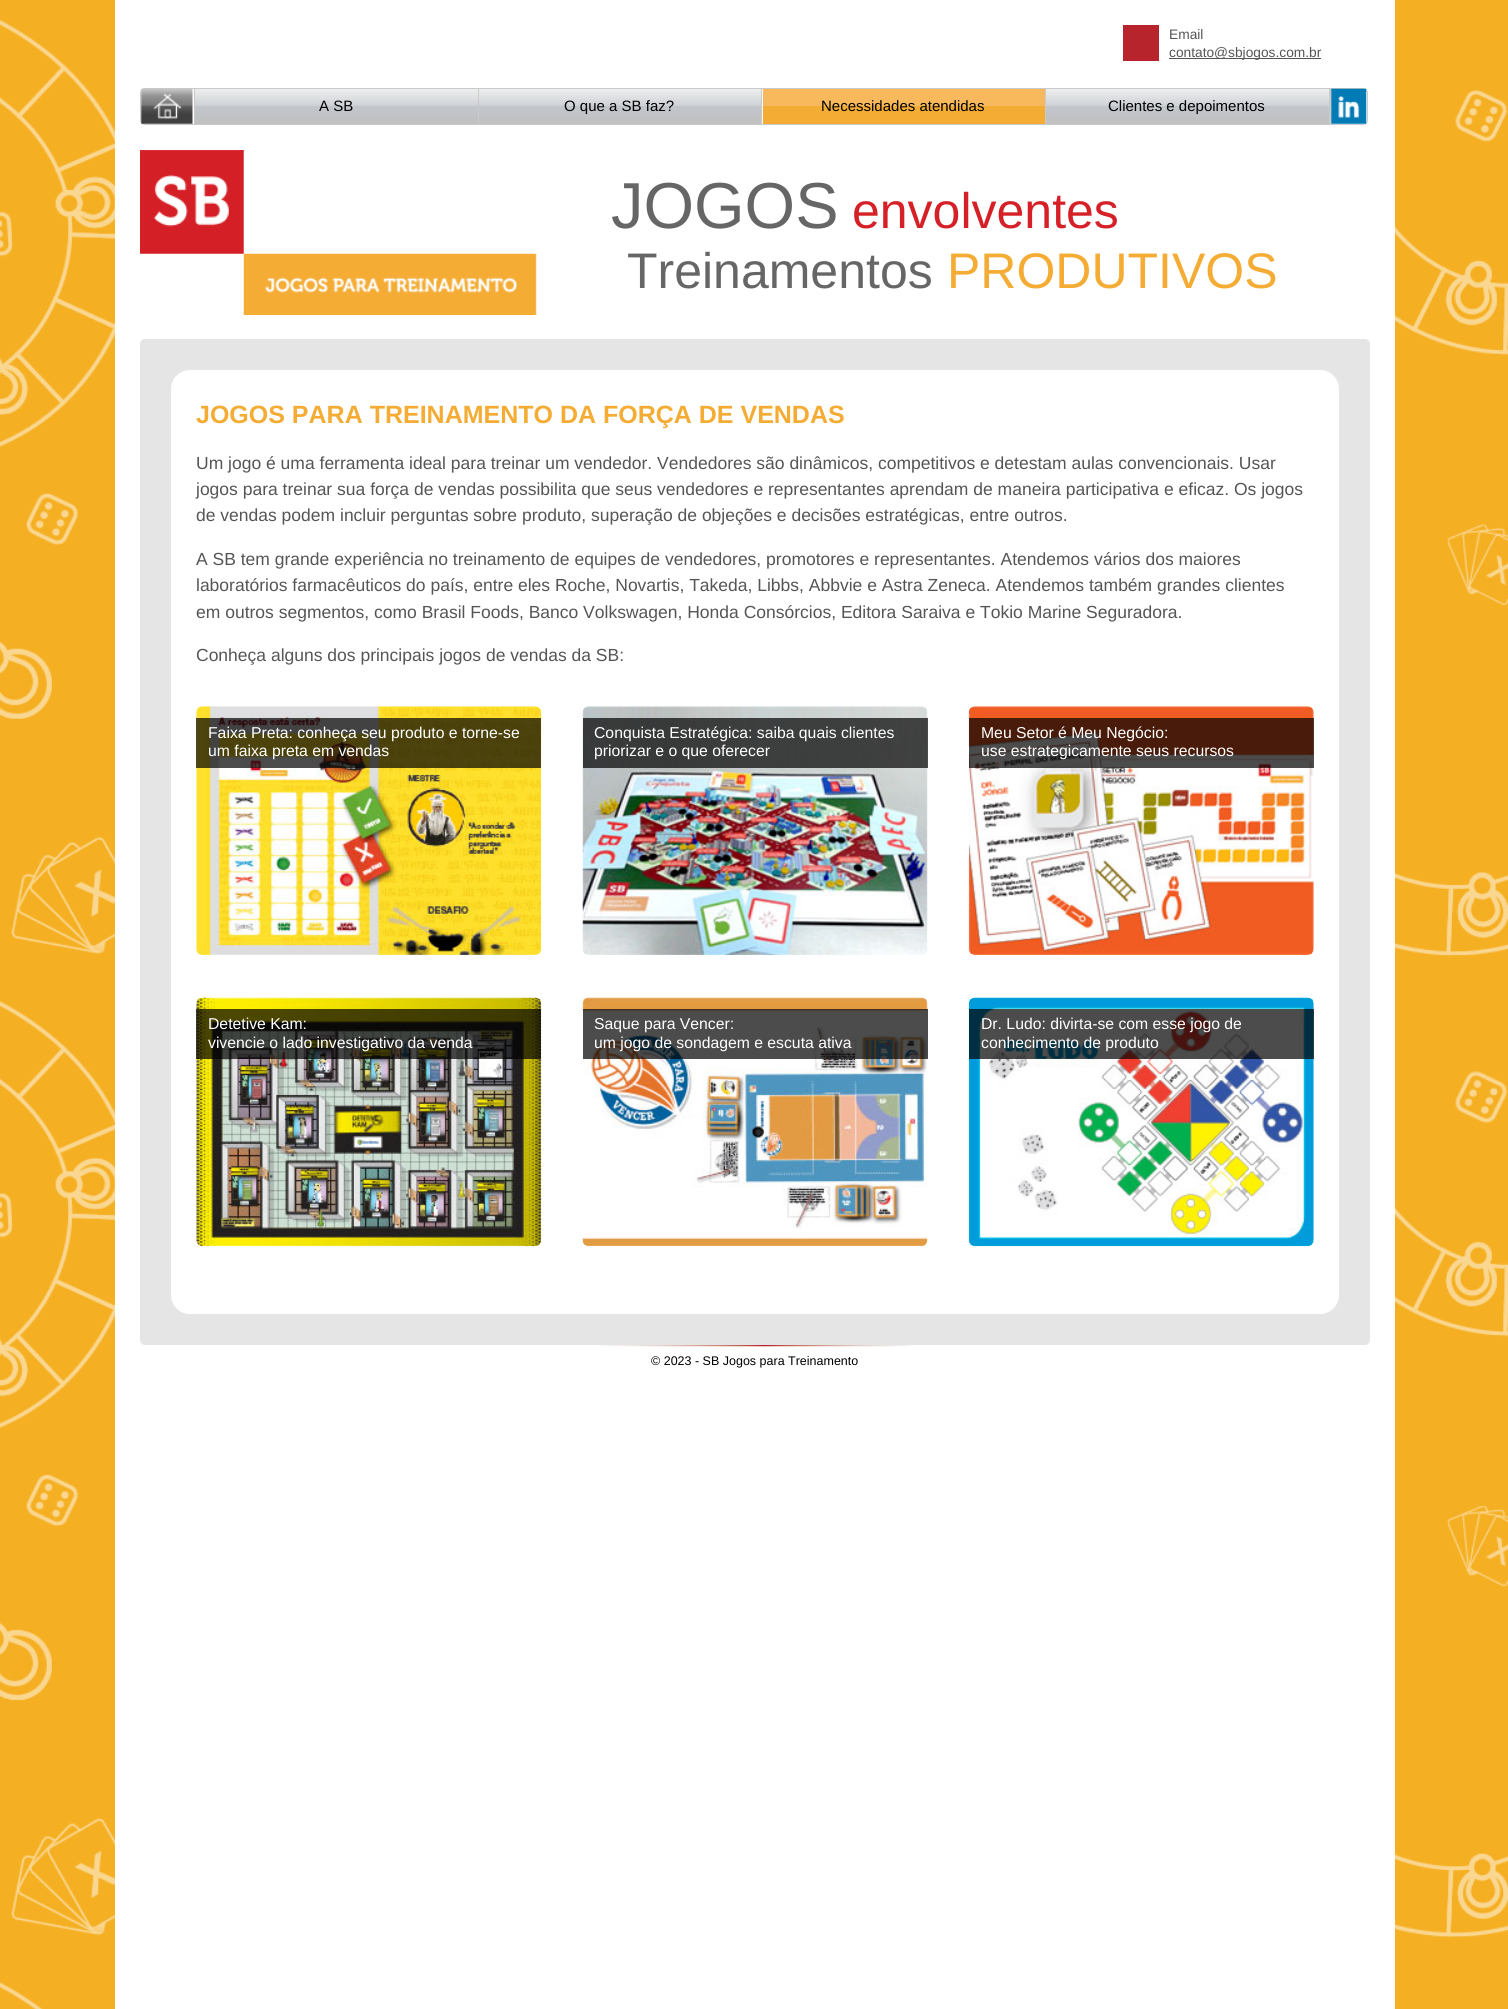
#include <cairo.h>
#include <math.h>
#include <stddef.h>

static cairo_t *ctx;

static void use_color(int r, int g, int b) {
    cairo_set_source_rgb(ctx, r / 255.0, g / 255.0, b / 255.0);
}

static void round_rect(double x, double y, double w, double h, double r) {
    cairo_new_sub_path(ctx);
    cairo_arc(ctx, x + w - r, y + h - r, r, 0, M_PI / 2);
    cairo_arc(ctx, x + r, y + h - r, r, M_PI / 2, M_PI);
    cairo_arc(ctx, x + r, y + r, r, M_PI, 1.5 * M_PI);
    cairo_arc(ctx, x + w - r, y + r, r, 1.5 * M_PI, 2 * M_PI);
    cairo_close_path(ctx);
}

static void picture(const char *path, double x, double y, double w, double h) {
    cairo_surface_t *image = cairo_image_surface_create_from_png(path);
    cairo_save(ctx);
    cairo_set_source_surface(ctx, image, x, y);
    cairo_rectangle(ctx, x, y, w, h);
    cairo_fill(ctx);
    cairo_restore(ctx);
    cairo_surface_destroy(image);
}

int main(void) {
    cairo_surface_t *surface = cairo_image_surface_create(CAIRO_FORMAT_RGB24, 1508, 2009);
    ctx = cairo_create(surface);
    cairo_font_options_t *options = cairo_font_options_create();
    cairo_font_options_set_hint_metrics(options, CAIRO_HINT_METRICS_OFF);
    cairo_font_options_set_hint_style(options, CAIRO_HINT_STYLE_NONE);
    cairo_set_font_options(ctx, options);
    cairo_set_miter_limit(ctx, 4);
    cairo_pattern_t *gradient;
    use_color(255, 255, 255);
    cairo_paint(ctx);
    picture("img1.png", 0, 0, 1508, 2009);
    use_color(255, 255, 255);
    cairo_rectangle(ctx, 115, 0, 1280, 2009);
    cairo_fill(ctx);
    use_color(183, 36, 43);
    cairo_rectangle(ctx, 1123, 25, 36, 36);
    cairo_fill(ctx);
    cairo_select_font_face(ctx, "Liberation Sans", CAIRO_FONT_SLANT_NORMAL, CAIRO_FONT_WEIGHT_NORMAL);
    cairo_set_font_size(ctx, 13.75);
    use_color(85, 85, 85);
    cairo_move_to(ctx, 1169, 39);
    cairo_show_text(ctx, "Email");
    cairo_rectangle(ctx, 1169, 58, 152, 1);
    cairo_fill(ctx);
    cairo_move_to(ctx, 1169, 57);
    cairo_show_text(ctx, "contato@sbjogos.com.br");
    picture("img2.png", 599, 1345, 312, 2);
    cairo_set_font_size(ctx, 12.5);
    use_color(0, 0, 0);
    cairo_move_to(ctx, 651, 1365);
    cairo_show_text(ctx, "© 2023 - SB Jogos para Treinamento");
    cairo_new_path(ctx);
    cairo_move_to(ctx, 145, 88.5);
    cairo_line_to(ctx, 194.5, 88.5);
    cairo_line_to(ctx, 194.5, 124.5);
    cairo_line_to(ctx, 145, 124.5);
    cairo_curve_to(ctx, 142.5, 124.5, 140.5, 122.5, 140.5, 120);
    cairo_line_to(ctx, 140.5, 93);
    cairo_curve_to(ctx, 140.5, 90.5, 142.5, 88.5, 145, 88.5);
    cairo_close_path(ctx);
    use_color(202, 202, 202);
    cairo_set_line_width(ctx, 1);
    cairo_stroke(ctx);
    picture("img3.png", 141, 88, 52, 36);
    cairo_rectangle(ctx, 195, 88, 1135, 1);
    cairo_fill(ctx);
    cairo_rectangle(ctx, 478, 88, 1, 37);
    cairo_fill(ctx);
    cairo_rectangle(ctx, 195, 124, 284, 1);
    cairo_fill(ctx);
    gradient = cairo_pattern_create_linear(336, 89, 336, 124);
    cairo_pattern_add_color_stop_rgba(gradient, 0, 0.933, 0.933, 0.933, 1);
    cairo_pattern_add_color_stop_rgba(gradient, 0.49, 0.804, 0.82, 0.839, 1);
    cairo_pattern_add_color_stop_rgba(gradient, 0.5, 0.804, 0.82, 0.839, 1);
    cairo_pattern_add_color_stop_rgba(gradient, 0.5, 0.761, 0.776, 0.796, 1);
    cairo_pattern_add_color_stop_rgba(gradient, 1, 0.753, 0.753, 0.757, 1);
    cairo_set_source(ctx, gradient);
    cairo_pattern_destroy(gradient);
    cairo_rectangle(ctx, 195, 89, 283, 35);
    cairo_fill(ctx);
    cairo_set_font_size(ctx, 15);
    use_color(0, 0, 0);
    cairo_move_to(ctx, 319, 111);
    cairo_show_text(ctx, "A SB");
    use_color(202, 202, 202);
    cairo_rectangle(ctx, 761, 88, 1, 37);
    cairo_fill(ctx);
    cairo_rectangle(ctx, 479, 124, 284, 1);
    cairo_fill(ctx);
    gradient = cairo_pattern_create_linear(620, 89, 620, 124);
    cairo_pattern_add_color_stop_rgba(gradient, 0, 0.933, 0.933, 0.933, 1);
    cairo_pattern_add_color_stop_rgba(gradient, 0.49, 0.804, 0.82, 0.839, 1);
    cairo_pattern_add_color_stop_rgba(gradient, 0.5, 0.804, 0.82, 0.839, 1);
    cairo_pattern_add_color_stop_rgba(gradient, 0.5, 0.761, 0.776, 0.796, 1);
    cairo_pattern_add_color_stop_rgba(gradient, 1, 0.753, 0.753, 0.757, 1);
    cairo_set_source(ctx, gradient);
    cairo_pattern_destroy(gradient);
    cairo_rectangle(ctx, 479, 89, 282, 35);
    cairo_fill(ctx);
    use_color(0, 0, 0);
    cairo_move_to(ctx, 564, 111);
    cairo_show_text(ctx, "O que a SB faz?");
    use_color(202, 202, 202);
    cairo_rectangle(ctx, 1045, 88, 1, 37);
    cairo_fill(ctx);
    cairo_rectangle(ctx, 763, 124, 283, 1);
    cairo_fill(ctx);
    use_color(247, 185, 91);
    cairo_rectangle(ctx, 763, 89, 282, 17);
    cairo_fill(ctx);
    use_color(245, 172, 52);
    cairo_rectangle(ctx, 763, 106, 282, 18);
    cairo_fill(ctx);
    use_color(0, 0, 0);
    cairo_move_to(ctx, 821, 111);
    cairo_show_text(ctx, "Necessidades atendidas");
    use_color(202, 202, 202);
    cairo_rectangle(ctx, 1329, 88, 1, 37);
    cairo_fill(ctx);
    cairo_rectangle(ctx, 1046, 124, 284, 1);
    cairo_fill(ctx);
    gradient = cairo_pattern_create_linear(1188, 89, 1188, 124);
    cairo_pattern_add_color_stop_rgba(gradient, 0, 0.933, 0.933, 0.933, 1);
    cairo_pattern_add_color_stop_rgba(gradient, 0.49, 0.804, 0.82, 0.839, 1);
    cairo_pattern_add_color_stop_rgba(gradient, 0.5, 0.804, 0.82, 0.839, 1);
    cairo_pattern_add_color_stop_rgba(gradient, 0.5, 0.761, 0.776, 0.796, 1);
    cairo_pattern_add_color_stop_rgba(gradient, 1, 0.753, 0.753, 0.757, 1);
    cairo_set_source(ctx, gradient);
    cairo_pattern_destroy(gradient);
    cairo_rectangle(ctx, 1046, 89, 283, 35);
    cairo_fill(ctx);
    use_color(0, 0, 0);
    cairo_move_to(ctx, 1108, 111);
    cairo_show_text(ctx, "Clientes e depoimentos");
    cairo_new_path(ctx);
    cairo_move_to(ctx, 1330.5, 88.5);
    cairo_line_to(ctx, 1363, 88.5);
    cairo_curve_to(ctx, 1365.5, 88.5, 1367.5, 90.5, 1367.5, 93);
    cairo_line_to(ctx, 1367.5, 120);
    cairo_curve_to(ctx, 1367.5, 122.5, 1365.5, 124.5, 1363, 124.5);
    cairo_line_to(ctx, 1330.5, 124.5);
    cairo_close_path(ctx);
    use_color(202, 202, 202);
    cairo_stroke(ctx);
    picture("img4.png", 1331, 88, 36, 36);
    picture("img5.png", 140, 150, 397, 165);
    cairo_set_font_size(ctx, 65);
    use_color(102, 102, 102);
    cairo_move_to(ctx, 611, 228);
    cairo_show_text(ctx, "JOGOS");
    cairo_set_font_size(ctx, 50);
    use_color(214, 32, 39);
    cairo_move_to(ctx, 852, 228);
    cairo_show_text(ctx, "envolventes");
    use_color(102, 102, 102);
    cairo_move_to(ctx, 627, 288);
    cairo_show_text(ctx, "Treinamentos");
    use_color(244, 172, 53);
    cairo_move_to(ctx, 947, 288);
    cairo_show_text(ctx, "PRODUTIVOS");
    use_color(229, 229, 229);
    round_rect(140, 339, 1230, 1006, 5);
    cairo_fill(ctx);
    use_color(255, 255, 255);
    round_rect(171, 370, 1168, 944, 19);
    cairo_fill(ctx);
    cairo_select_font_face(ctx, "Liberation Sans", CAIRO_FONT_SLANT_NORMAL, CAIRO_FONT_WEIGHT_BOLD);
    cairo_set_font_size(ctx, 25);
    use_color(244, 172, 53);
    cairo_move_to(ctx, 196, 423);
    cairo_show_text(ctx, "JOGOS PARA TREINAMENTO DA FORÇA DE VENDAS");
    cairo_select_font_face(ctx, "Liberation Sans", CAIRO_FONT_SLANT_NORMAL, CAIRO_FONT_WEIGHT_NORMAL);
    cairo_set_font_size(ctx, 17.5);
    use_color(85, 85, 85);
    cairo_move_to(ctx, 196, 469);
    cairo_show_text(ctx, "Um jogo é uma ferramenta ideal para treinar um vendedor. Vendedores são dinâmicos, competitivos e detestam aulas convencionais. Usar");
    cairo_move_to(ctx, 196, 495);
    cairo_show_text(ctx, "jogos para treinar sua força de vendas possibilita que seus vendedores e representantes aprendam de maneira participativa e eficaz. Os jogos");
    cairo_move_to(ctx, 196, 521);
    cairo_show_text(ctx, "de vendas podem incluir perguntas sobre produto, superação de objeções e decisões estratégicas, entre outros.");
    cairo_move_to(ctx, 196, 565);
    cairo_show_text(ctx, "A SB tem grande experiência no treinamento de equipes de vendedores, promotores e representantes. Atendemos vários dos maiores");
    cairo_move_to(ctx, 196, 591);
    cairo_show_text(ctx, "laboratórios farmacêuticos do país, entre eles Roche, Novartis, Takeda, Libbs, Abbvie e Astra Zeneca. Atendemos também grandes clientes");
    cairo_move_to(ctx, 196, 618);
    cairo_show_text(ctx, "em outros segmentos, como Brasil Foods, Banco Volkswagen, Honda Consórcios, Editora Saraiva e Tokio Marine Seguradora.");
    cairo_move_to(ctx, 196, 661);
    cairo_show_text(ctx, "Conheça alguns dos principais jogos de vendas da SB:");
    picture("img6.png", 196, 706, 346, 249);
    cairo_set_source_rgba(ctx, 0, 0, 0, 0.7);
    cairo_rectangle(ctx, 196, 718, 345, 50);
    cairo_fill(ctx);
    cairo_set_font_size(ctx, 15.75);
    use_color(255, 255, 255);
    cairo_move_to(ctx, 208, 738);
    cairo_show_text(ctx, "Faixa Preta: conheça seu produto e torne-se");
    cairo_move_to(ctx, 208, 756);
    cairo_show_text(ctx, "um faixa preta em vendas");
    picture("img7.png", 582, 706, 346, 249);
    cairo_set_source_rgba(ctx, 0, 0, 0, 0.7);
    cairo_rectangle(ctx, 583, 718, 345, 50);
    cairo_fill(ctx);
    use_color(255, 255, 255);
    cairo_move_to(ctx, 594, 738);
    cairo_show_text(ctx, "Conquista Estratégica: saiba quais clientes");
    cairo_move_to(ctx, 594, 756);
    cairo_show_text(ctx, "priorizar e o que oferecer");
    picture("img8.png", 968, 706, 346, 249);
    cairo_set_source_rgba(ctx, 0, 0, 0, 0.7);
    cairo_rectangle(ctx, 969, 718, 345, 50);
    cairo_fill(ctx);
    use_color(255, 255, 255);
    cairo_move_to(ctx, 981, 738);
    cairo_show_text(ctx, "Meu Setor é Meu Negócio:");
    cairo_move_to(ctx, 981, 756);
    cairo_show_text(ctx, "use estrategicamente seus recursos");
    picture("img9.png", 196, 997, 346, 250);
    cairo_set_source_rgba(ctx, 0, 0, 0, 0.7);
    cairo_rectangle(ctx, 196, 1009, 345, 50);
    cairo_fill(ctx);
    use_color(255, 255, 255);
    cairo_move_to(ctx, 208, 1029);
    cairo_show_text(ctx, "Detetive Kam:");
    cairo_move_to(ctx, 208, 1048);
    cairo_show_text(ctx, "vivencie o lado investigativo da venda");
    picture("img10.png", 582, 997, 346, 250);
    cairo_set_source_rgba(ctx, 0, 0, 0, 0.7);
    cairo_rectangle(ctx, 583, 1009, 345, 50);
    cairo_fill(ctx);
    use_color(255, 255, 255);
    cairo_move_to(ctx, 594, 1029);
    cairo_show_text(ctx, "Saque para Vencer:");
    cairo_move_to(ctx, 594, 1048);
    cairo_show_text(ctx, "um jogo de sondagem e escuta ativa");
    picture("img11.png", 968, 997, 346, 250);
    cairo_set_source_rgba(ctx, 0, 0, 0, 0.7);
    cairo_rectangle(ctx, 969, 1009, 345, 50);
    cairo_fill(ctx);
    use_color(255, 255, 255);
    cairo_move_to(ctx, 981, 1029);
    cairo_show_text(ctx, "Dr. Ludo: divirta-se com esse jogo de");
    cairo_move_to(ctx, 981, 1048);
    cairo_show_text(ctx, "conhecimento de produto");
    cairo_surface_write_to_png(surface, "result.png");
    cairo_font_options_destroy(options);
    cairo_destroy(ctx);
    cairo_surface_destroy(surface);
    return 0;
}
